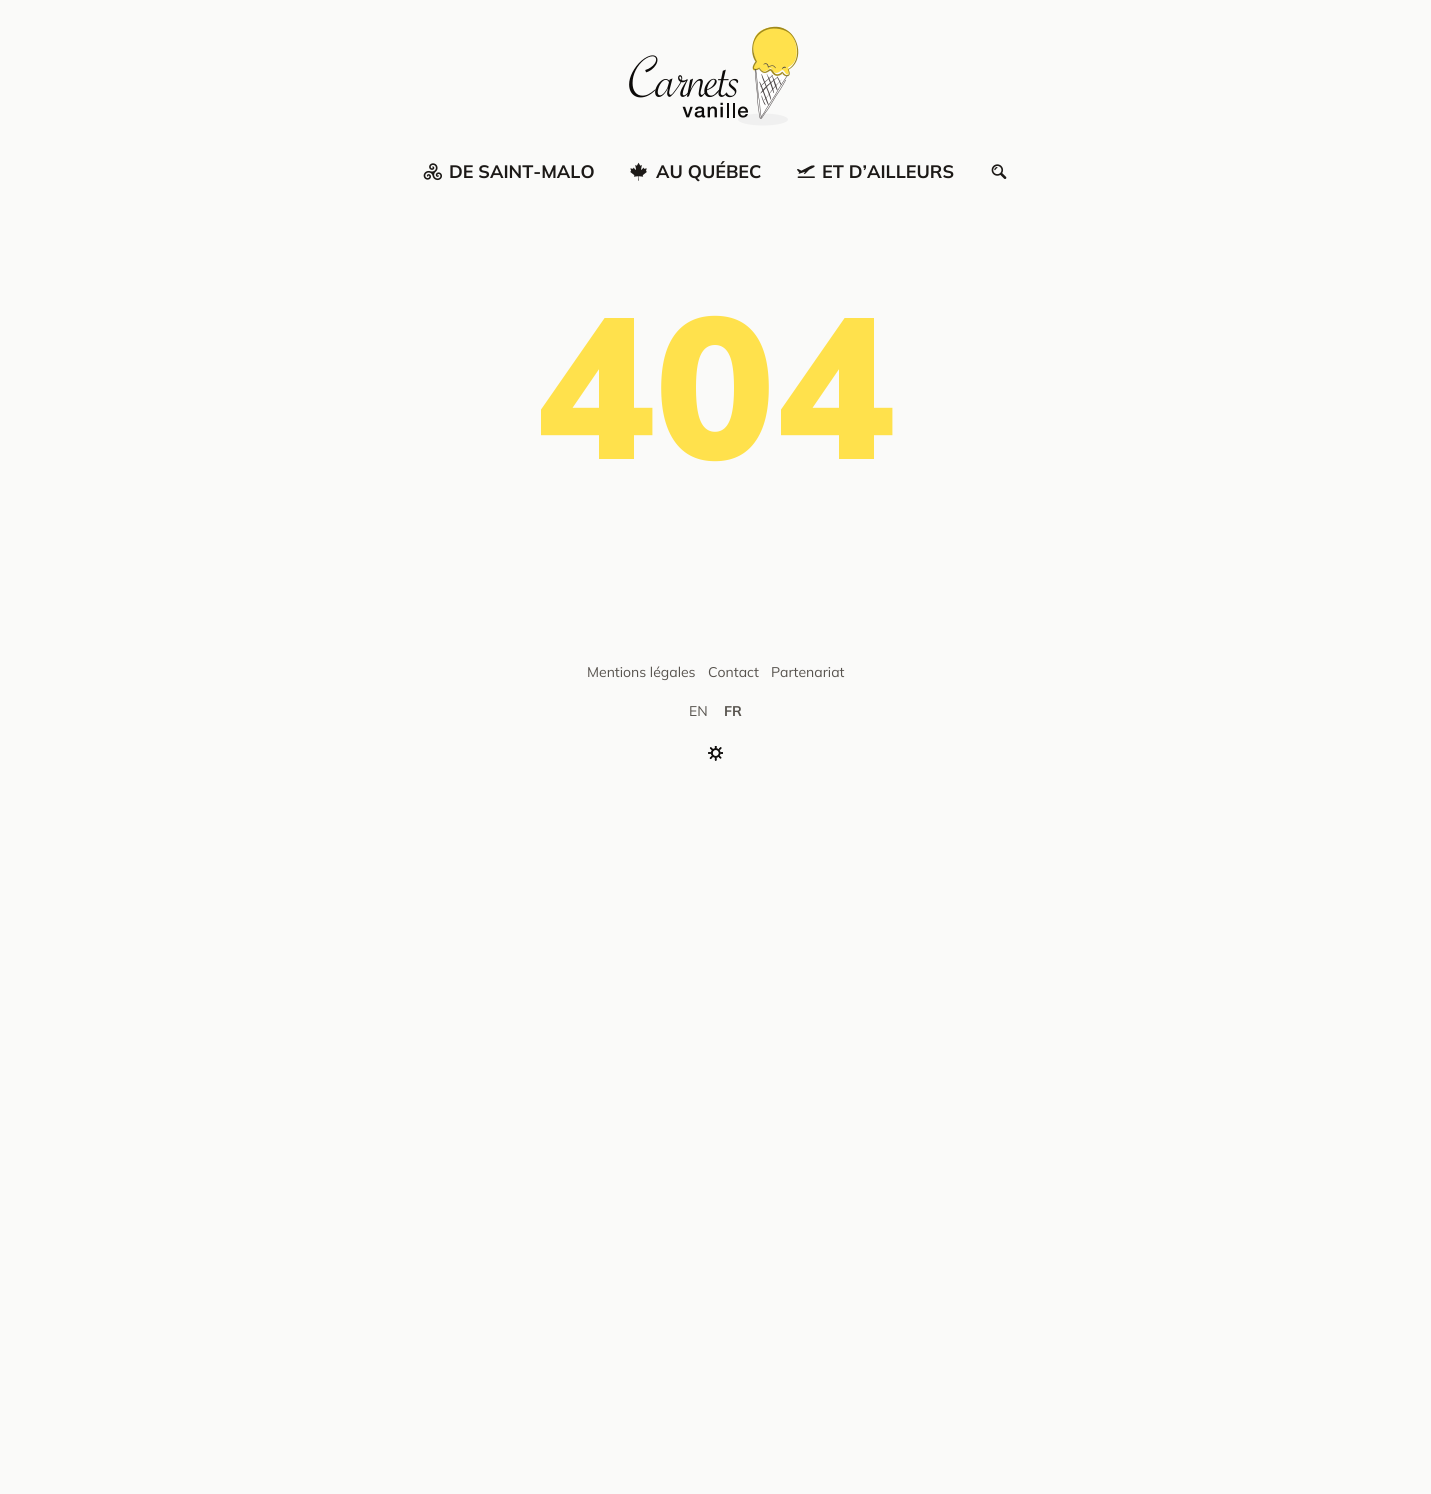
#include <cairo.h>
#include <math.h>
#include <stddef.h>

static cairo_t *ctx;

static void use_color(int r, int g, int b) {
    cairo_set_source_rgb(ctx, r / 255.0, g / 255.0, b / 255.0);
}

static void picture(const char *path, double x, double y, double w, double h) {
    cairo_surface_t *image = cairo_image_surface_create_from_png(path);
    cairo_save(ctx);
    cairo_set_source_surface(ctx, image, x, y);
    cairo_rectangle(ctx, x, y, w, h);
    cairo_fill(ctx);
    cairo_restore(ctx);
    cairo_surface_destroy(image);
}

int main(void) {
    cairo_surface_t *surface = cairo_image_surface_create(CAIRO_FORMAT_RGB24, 1431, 1494);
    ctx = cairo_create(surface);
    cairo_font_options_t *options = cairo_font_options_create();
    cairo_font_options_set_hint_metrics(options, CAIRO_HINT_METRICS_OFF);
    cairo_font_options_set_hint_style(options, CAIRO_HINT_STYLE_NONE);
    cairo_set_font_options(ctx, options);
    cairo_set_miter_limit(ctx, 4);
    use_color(250, 250, 249);
    cairo_paint(ctx);
    picture("img1.png", 629, 26, 170, 100);
    picture("img2.png", 423, 163, 19, 18);
    cairo_select_font_face(ctx, "Mulish", CAIRO_FONT_SLANT_NORMAL, CAIRO_FONT_WEIGHT_BOLD);
    cairo_set_font_size(ctx, 18);
    use_color(28, 25, 23);
    cairo_move_to(ctx, 449, 178);
    cairo_show_text(ctx, "DE SAINT-MALO");
    picture("img3.png", 630, 162, 17, 19);
    cairo_move_to(ctx, 656, 178);
    cairo_show_text(ctx, "AU QUÉBEC");
    picture("img4.png", 797, 165, 18, 13);
    cairo_move_to(ctx, 822, 178);
    cairo_show_text(ctx, "ET D’AILLEURS");
    picture("img5.png", 991, 164, 16, 15);
    cairo_select_font_face(ctx, "Mulish Black", CAIRO_FONT_SLANT_NORMAL, CAIRO_FONT_WEIGHT_NORMAL);
    cairo_set_font_size(ctx, 200);
    use_color(255, 225, 76);
    cairo_move_to(ctx, 535, 459);
    cairo_show_text(ctx, "404");
    cairo_select_font_face(ctx, "Mulish", CAIRO_FONT_SLANT_NORMAL, CAIRO_FONT_WEIGHT_NORMAL);
    cairo_set_font_size(ctx, 14);
    use_color(87, 83, 78);
    cairo_move_to(ctx, 587, 677);
    cairo_show_text(ctx, "Mentions légales");
    cairo_move_to(ctx, 708, 677);
    cairo_show_text(ctx, "Contact");
    cairo_move_to(ctx, 771, 677);
    cairo_show_text(ctx, "Partenariat");
    cairo_move_to(ctx, 689, 716);
    cairo_show_text(ctx, "EN");
    cairo_select_font_face(ctx, "Mulish", CAIRO_FONT_SLANT_NORMAL, CAIRO_FONT_WEIGHT_BOLD);
    cairo_move_to(ctx, 724, 716);
    cairo_show_text(ctx, "FR");
    picture("img6.png", 708, 746, 15, 15);
    cairo_surface_write_to_png(surface, "result.png");
    cairo_font_options_destroy(options);
    cairo_destroy(ctx);
    cairo_surface_destroy(surface);
    return 0;
}
